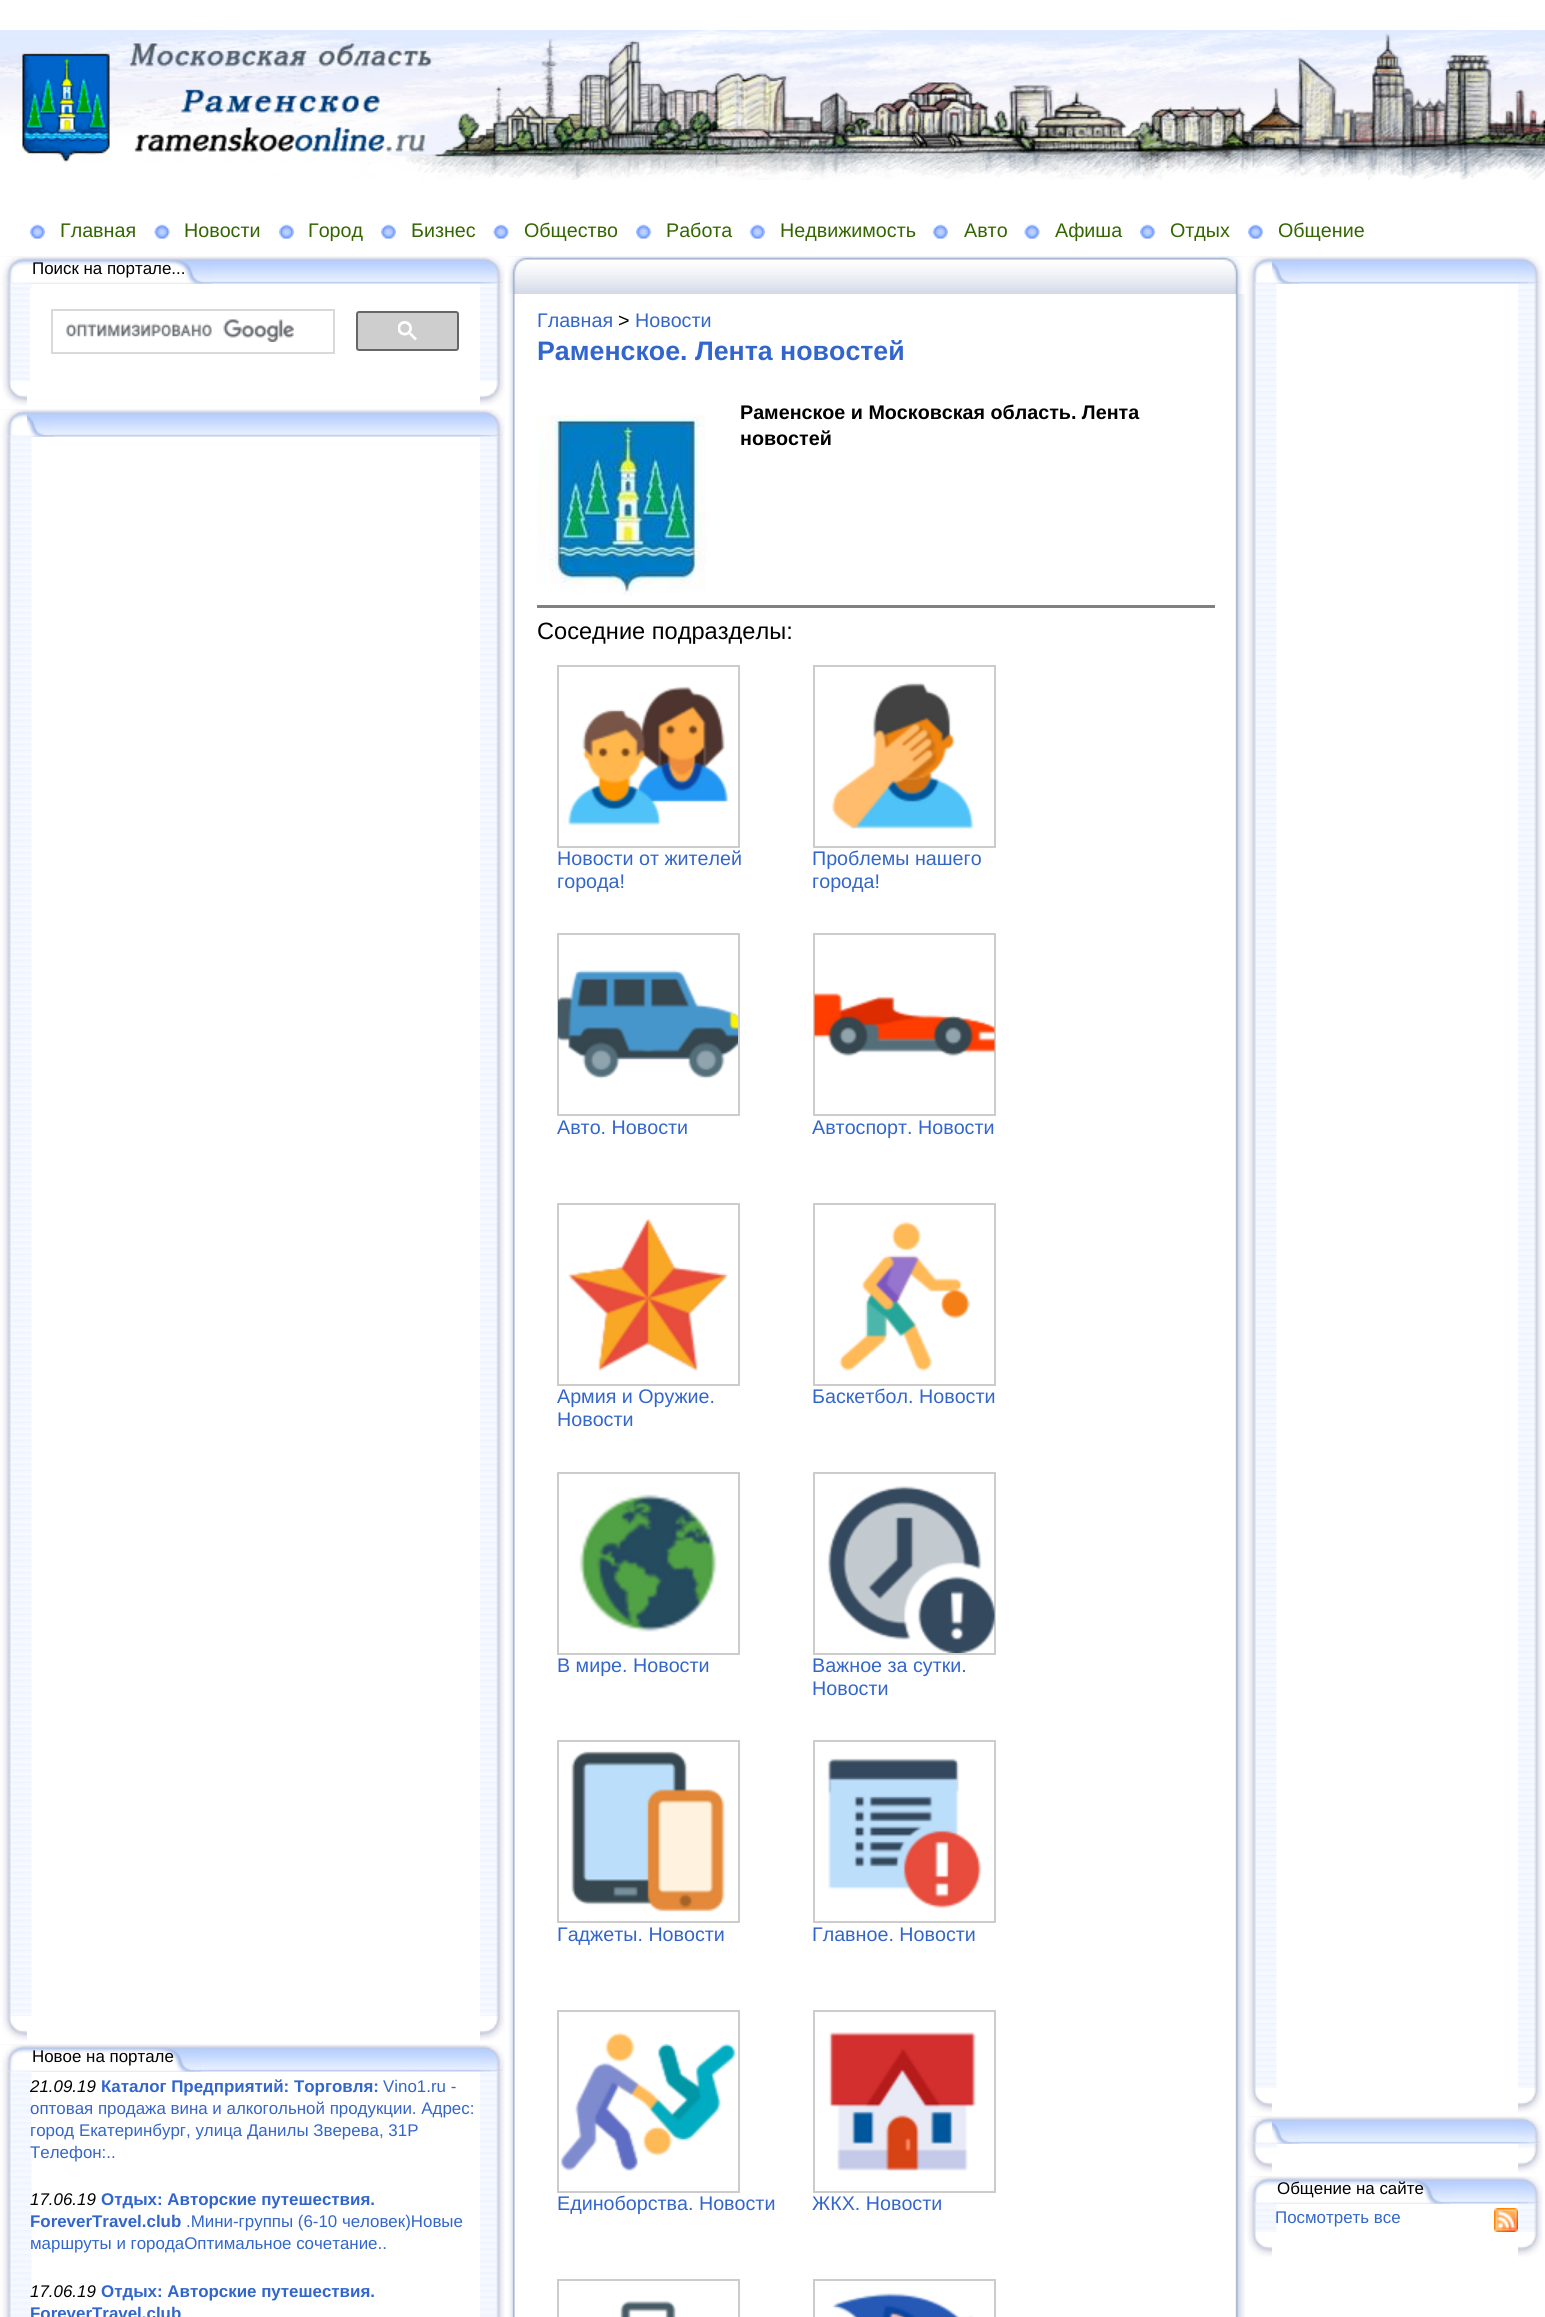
#include <cairo.h>
#include <math.h>
#include <stddef.h>

static cairo_t *ctx;

static void use_color(int r, int g, int b) {
    cairo_set_source_rgb(ctx, r / 255.0, g / 255.0, b / 255.0);
}

static void round_rect(double x, double y, double w, double h, double r) {
    cairo_new_sub_path(ctx);
    cairo_arc(ctx, x + w - r, y + h - r, r, 0, M_PI / 2);
    cairo_arc(ctx, x + r, y + h - r, r, M_PI / 2, M_PI);
    cairo_arc(ctx, x + r, y + r, r, M_PI, 1.5 * M_PI);
    cairo_arc(ctx, x + w - r, y + r, r, 1.5 * M_PI, 2 * M_PI);
    cairo_close_path(ctx);
}

static void picture(const char *path, double x, double y, double w, double h) {
    cairo_surface_t *image = cairo_image_surface_create_from_png(path);
    cairo_save(ctx);
    cairo_set_source_surface(ctx, image, x, y);
    cairo_rectangle(ctx, x, y, w, h);
    cairo_fill(ctx);
    cairo_restore(ctx);
    cairo_surface_destroy(image);
}

int main(void) {
    cairo_surface_t *surface = cairo_image_surface_create(CAIRO_FORMAT_RGB24, 1545, 2317);
    ctx = cairo_create(surface);
    cairo_font_options_t *options = cairo_font_options_create();
    cairo_font_options_set_hint_metrics(options, CAIRO_HINT_METRICS_OFF);
    cairo_font_options_set_hint_style(options, CAIRO_HINT_STYLE_NONE);
    cairo_set_font_options(ctx, options);
    cairo_set_miter_limit(ctx, 4);
    use_color(255, 255, 255);
    cairo_paint(ctx);
    picture("img1.png", 0, 30, 1545, 150);
    picture("img2.png", 30, 224, 15, 15);
    cairo_select_font_face(ctx, "Liberation Sans", CAIRO_FONT_SLANT_NORMAL, CAIRO_FONT_WEIGHT_NORMAL);
    cairo_set_font_size(ctx, 19.7);
    use_color(51, 102, 0);
    cairo_move_to(ctx, 60, 237);
    cairo_show_text(ctx, "Главная");
    picture("img3.png", 154, 224, 16, 15);
    cairo_move_to(ctx, 184, 237);
    cairo_show_text(ctx, "Новости");
    picture("img4.png", 279, 224, 15, 15);
    cairo_move_to(ctx, 308, 237);
    cairo_show_text(ctx, "Город");
    picture("img4.png", 381, 224, 15, 15);
    cairo_move_to(ctx, 411, 237);
    cairo_show_text(ctx, "Бизнес");
    picture("img3.png", 493, 224, 16, 15);
    cairo_move_to(ctx, 524, 237);
    cairo_show_text(ctx, "Общество");
    picture("img2.png", 636, 224, 15, 15);
    cairo_move_to(ctx, 666, 237);
    cairo_show_text(ctx, "Работа");
    picture("img4.png", 750, 224, 15, 15);
    cairo_move_to(ctx, 780, 237);
    cairo_show_text(ctx, "Недвижимость");
    picture("img2.png", 933, 224, 15, 15);
    cairo_move_to(ctx, 964, 237);
    cairo_show_text(ctx, "Авто");
    picture("img5.png", 1024, 224, 16, 15);
    cairo_move_to(ctx, 1055, 237);
    cairo_show_text(ctx, "Афиша");
    picture("img4.png", 1140, 224, 15, 15);
    cairo_move_to(ctx, 1170, 237);
    cairo_show_text(ctx, "Отдых");
    picture("img4.png", 1248, 224, 15, 15);
    cairo_move_to(ctx, 1278, 237);
    cairo_show_text(ctx, "Общение");
    picture("img6.png", 0, 256, 480, 28);
    picture("img7.png", 0, 259, 212, 25);
    picture("img10.png", 0, 283, 32, 98);
    picture("img8.png", 0, 256, 23, 28);
    cairo_set_font_size(ctx, 16.9);
    use_color(0, 0, 0);
    cairo_move_to(ctx, 32, 274);
    cairo_show_text(ctx, "Поиск на портале...");
    picture("img13.png", 480, 283, 25, 98);
    picture("img9.png", 480, 256, 25, 28);
    use_color(255, 255, 255);
    cairo_rectangle(ctx, 30, 288, 2, 93);
    cairo_fill(ctx);
    cairo_rectangle(ctx, 52, 310, 282, 43);
    use_color(217, 217, 217);
    cairo_stroke(ctx);
    picture("img11.png", 66, 319, 228, 23);
    use_color(206, 206, 206);
    round_rect(357, 312, 101, 38, 2);
    cairo_fill_preserve(ctx);
    use_color(102, 102, 102);
    cairo_stroke(ctx);
    picture("img12.png", 398, 321, 19, 20);
    picture("img14.png", 2, 381, 25, 25);
    picture("img15.png", 480, 381, 25, 25);
    picture("img16.png", 0, 409, 480, 28);
    picture("img17.png", 0, 412, 54, 25);
    picture("img20.png", 0, 436, 32, 1580);
    picture("img18.png", 0, 409, 27, 28);
    picture("img21.png", 480, 436, 25, 1580);
    picture("img19.png", 480, 409, 25, 28);
    picture("img14.png", 2, 2016, 25, 25);
    picture("img15.png", 480, 2016, 25, 25);
    picture("img22.png", 0, 2044, 480, 28);
    picture("img23.png", 0, 2047, 201, 25);
    picture("img26.png", 0, 2071, 32, 246);
    picture("img24.png", 0, 2044, 23, 28);
    use_color(0, 0, 0);
    cairo_move_to(ctx, 32, 2062);
    cairo_show_text(ctx, "Новое на портале");
    picture("img27.png", 480, 2071, 25, 246);
    picture("img25.png", 480, 2044, 25, 28);
    cairo_select_font_face(ctx, "Liberation Sans", CAIRO_FONT_SLANT_ITALIC, CAIRO_FONT_WEIGHT_NORMAL);
    cairo_move_to(ctx, 30, 2092);
    cairo_show_text(ctx, "21.09.19");
    cairo_select_font_face(ctx, "Liberation Sans", CAIRO_FONT_SLANT_NORMAL, CAIRO_FONT_WEIGHT_BOLD);
    use_color(51, 102, 204);
    cairo_move_to(ctx, 101, 2092);
    cairo_show_text(ctx, "Каталог Предприятий: Торговля:");
    cairo_select_font_face(ctx, "Liberation Sans", CAIRO_FONT_SLANT_NORMAL, CAIRO_FONT_WEIGHT_NORMAL);
    cairo_move_to(ctx, 383, 2092);
    cairo_show_text(ctx, "Vino1.ru -");
    cairo_move_to(ctx, 30, 2114);
    cairo_show_text(ctx, "оптовая продажа вина и алкогольной продукции. Адрес:");
    cairo_move_to(ctx, 30, 2136);
    cairo_show_text(ctx, "город Екатеринбург, улица Данилы Зверева, 31Р");
    cairo_move_to(ctx, 30, 2158);
    cairo_show_text(ctx, "Телефон:..");
    cairo_select_font_face(ctx, "Liberation Sans", CAIRO_FONT_SLANT_ITALIC, CAIRO_FONT_WEIGHT_NORMAL);
    use_color(0, 0, 0);
    cairo_move_to(ctx, 30, 2205);
    cairo_show_text(ctx, "17.06.19");
    cairo_select_font_face(ctx, "Liberation Sans", CAIRO_FONT_SLANT_NORMAL, CAIRO_FONT_WEIGHT_BOLD);
    use_color(51, 102, 204);
    cairo_move_to(ctx, 101, 2205);
    cairo_show_text(ctx, "Отдых: Авторские путешествия.");
    cairo_move_to(ctx, 30, 2227);
    cairo_show_text(ctx, "ForeverTravel.club");
    cairo_select_font_face(ctx, "Liberation Sans", CAIRO_FONT_SLANT_NORMAL, CAIRO_FONT_WEIGHT_NORMAL);
    cairo_move_to(ctx, 186, 2227);
    cairo_show_text(ctx, ".Мини-группы (6-10 человек)Новые");
    cairo_move_to(ctx, 30, 2249);
    cairo_show_text(ctx, "маршруты и городаОптимальное сочетание..");
    cairo_select_font_face(ctx, "Liberation Sans", CAIRO_FONT_SLANT_ITALIC, CAIRO_FONT_WEIGHT_NORMAL);
    use_color(0, 0, 0);
    cairo_move_to(ctx, 30, 2297);
    cairo_show_text(ctx, "17.06.19");
    cairo_select_font_face(ctx, "Liberation Sans", CAIRO_FONT_SLANT_NORMAL, CAIRO_FONT_WEIGHT_BOLD);
    use_color(51, 102, 204);
    cairo_move_to(ctx, 101, 2297);
    cairo_show_text(ctx, "Отдых: Авторские путешествия.");
    cairo_move_to(ctx, 30, 2319);
    cairo_show_text(ctx, "ForeverTravel.club");
    picture("img28.png", 507, 256, 738, 38);
    picture("img29.png", 1220, 256, 25, 38);
    picture("img30.png", 507, 256, 24, 38);
    picture("img31.png", 508, 294, 7, 2023);
    picture("img32.png", 1235, 294, 10, 2023);
    cairo_select_font_face(ctx, "Liberation Sans", CAIRO_FONT_SLANT_NORMAL, CAIRO_FONT_WEIGHT_NORMAL);
    cairo_set_font_size(ctx, 19.7);
    cairo_move_to(ctx, 537, 327);
    cairo_show_text(ctx, "Главная");
    use_color(0, 0, 0);
    cairo_move_to(ctx, 618, 327);
    cairo_show_text(ctx, ">");
    use_color(51, 102, 204);
    cairo_move_to(ctx, 635, 327);
    cairo_show_text(ctx, "Новости");
    cairo_select_font_face(ctx, "Liberation Sans", CAIRO_FONT_SLANT_NORMAL, CAIRO_FONT_WEIGHT_BOLD);
    cairo_set_font_size(ctx, 26.75);
    cairo_move_to(ctx, 537, 360);
    cairo_show_text(ctx, "Раменское. Лента новостей");
    picture("img33.png", 537, 415, 169, 181);
    cairo_set_font_size(ctx, 19.7);
    use_color(0, 0, 0);
    cairo_move_to(ctx, 740, 419);
    cairo_show_text(ctx, "Раменское и Московская область. Лента");
    cairo_move_to(ctx, 740, 445);
    cairo_show_text(ctx, "новостей");
    use_color(128, 128, 128);
    cairo_rectangle(ctx, 537, 605, 678, 3);
    cairo_fill(ctx);
    cairo_select_font_face(ctx, "Liberation Sans", CAIRO_FONT_SLANT_NORMAL, CAIRO_FONT_WEIGHT_NORMAL);
    cairo_set_font_size(ctx, 23.6);
    use_color(0, 0, 0);
    cairo_move_to(ctx, 537, 639);
    cairo_show_text(ctx, "Соседние подразделы:");
    cairo_rectangle(ctx, 558, 666, 181, 181);
    use_color(204, 204, 204);
    cairo_stroke(ctx);
    picture("img34.png", 568, 686, 160, 140);
    cairo_set_font_size(ctx, 19.7);
    use_color(51, 102, 204);
    cairo_move_to(ctx, 557, 865);
    cairo_show_text(ctx, "Новости от жителей");
    cairo_move_to(ctx, 557, 888);
    cairo_show_text(ctx, "города!");
    cairo_rectangle(ctx, 814, 666, 181, 181);
    use_color(204, 204, 204);
    cairo_stroke(ctx);
    picture("img35.png", 831, 682, 143, 148);
    use_color(51, 102, 204);
    cairo_move_to(ctx, 812, 865);
    cairo_show_text(ctx, "Проблемы нашего");
    cairo_move_to(ctx, 812, 888);
    cairo_show_text(ctx, "города!");
    cairo_rectangle(ctx, 558, 934, 181, 181);
    use_color(204, 204, 204);
    cairo_stroke(ctx);
    picture("img36.png", 558, 970, 180, 109);
    use_color(51, 102, 204);
    cairo_move_to(ctx, 557, 1134);
    cairo_show_text(ctx, "Авто. Новости");
    cairo_rectangle(ctx, 814, 934, 181, 181);
    use_color(204, 204, 204);
    cairo_stroke(ctx);
    picture("img37.png", 814, 992, 181, 65);
    use_color(51, 102, 204);
    cairo_move_to(ctx, 812, 1134);
    cairo_show_text(ctx, "Автоспорт. Новости");
    cairo_rectangle(ctx, 558, 1204, 181, 181);
    use_color(204, 204, 204);
    cairo_stroke(ctx);
    picture("img38.png", 568, 1218, 160, 154);
    use_color(51, 102, 204);
    cairo_move_to(ctx, 557, 1403);
    cairo_show_text(ctx, "Армия и Оружие.");
    cairo_move_to(ctx, 557, 1426);
    cairo_show_text(ctx, "Новости");
    cairo_rectangle(ctx, 814, 1204, 181, 181);
    use_color(204, 204, 204);
    cairo_stroke(ctx);
    picture("img39.png", 838, 1221, 133, 151);
    use_color(51, 102, 204);
    cairo_move_to(ctx, 812, 1403);
    cairo_show_text(ctx, "Баскетбол. Новости");
    cairo_rectangle(ctx, 558, 1473, 181, 181);
    use_color(204, 204, 204);
    cairo_stroke(ctx);
    picture("img40.png", 579, 1494, 138, 138);
    use_color(51, 102, 204);
    cairo_move_to(ctx, 557, 1672);
    cairo_show_text(ctx, "В мире. Новости");
    cairo_rectangle(ctx, 814, 1473, 181, 181);
    use_color(204, 204, 204);
    cairo_stroke(ctx);
    picture("img41.png", 827, 1486, 168, 167);
    use_color(51, 102, 204);
    cairo_move_to(ctx, 812, 1672);
    cairo_show_text(ctx, "Важное за сутки.");
    cairo_move_to(ctx, 812, 1695);
    cairo_show_text(ctx, "Новости");
    cairo_rectangle(ctx, 558, 1741, 181, 181);
    use_color(204, 204, 204);
    cairo_stroke(ctx);
    picture("img42.png", 571, 1751, 154, 161);
    use_color(51, 102, 204);
    cairo_move_to(ctx, 557, 1941);
    cairo_show_text(ctx, "Гаджеты. Новости");
    cairo_rectangle(ctx, 814, 1741, 181, 181);
    use_color(204, 204, 204);
    cairo_stroke(ctx);
    picture("img43.png", 827, 1758, 155, 151);
    use_color(51, 102, 204);
    cairo_move_to(ctx, 812, 1941);
    cairo_show_text(ctx, "Главное. Новости");
    cairo_rectangle(ctx, 558, 2011, 181, 181);
    use_color(204, 204, 204);
    cairo_stroke(ctx);
    picture("img44.png", 560, 2032, 176, 139);
    use_color(51, 102, 204);
    cairo_move_to(ctx, 557, 2210);
    cairo_show_text(ctx, "Единоборства. Новости");
    cairo_rectangle(ctx, 814, 2011, 181, 181);
    use_color(204, 204, 204);
    cairo_stroke(ctx);
    picture("img45.png", 829, 2032, 147, 139);
    use_color(51, 102, 204);
    cairo_move_to(ctx, 812, 2210);
    cairo_show_text(ctx, "ЖКХ. Новости");
    cairo_rectangle(ctx, 558, 2280, 181, 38);
    use_color(204, 204, 204);
    cairo_stroke(ctx);
    picture("img46.png", 619, 2300, 58, 17);
    cairo_rectangle(ctx, 814, 2280, 181, 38);
    cairo_stroke(ctx);
    picture("img47.png", 832, 2293, 142, 24);
    picture("img48.png", 1245, 256, 273, 28);
    picture("img49.png", 1245, 259, 54, 25);
    picture("img52.png", 1245, 283, 32, 1805);
    picture("img50.png", 1245, 256, 27, 28);
    picture("img53.png", 1518, 283, 25, 1805);
    picture("img51.png", 1518, 256, 25, 28);
    picture("img54.png", 1247, 2088, 25, 25);
    picture("img55.png", 1518, 2088, 25, 25);
    picture("img56.png", 1245, 2116, 273, 28);
    picture("img49.png", 1245, 2119, 54, 25);
    picture("img58.png", 1245, 2143, 32, 5);
    picture("img57.png", 1245, 2116, 27, 28);
    picture("img59.png", 1518, 2143, 25, 5);
    picture("img51.png", 1518, 2116, 25, 28);
    picture("img54.png", 1247, 2148, 25, 25);
    picture("img55.png", 1518, 2148, 25, 25);
    picture("img48.png", 1245, 2176, 273, 28);
    picture("img60.png", 1245, 2179, 206, 25);
    picture("img61.png", 1245, 2203, 32, 29);
    picture("img50.png", 1245, 2176, 27, 28);
    cairo_set_font_size(ctx, 16.9);
    use_color(0, 0, 0);
    cairo_move_to(ctx, 1277, 2194);
    cairo_show_text(ctx, "Общение на сайте");
    picture("img63.png", 1518, 2203, 25, 29);
    picture("img51.png", 1518, 2176, 25, 28);
    use_color(51, 102, 204);
    cairo_move_to(ctx, 1275, 2223);
    cairo_show_text(ctx, "Посмотреть все");
    picture("img62.png", 1494, 2208, 24, 24);
    picture("img54.png", 1247, 2232, 25, 25);
    picture("img55.png", 1518, 2232, 25, 25);
    cairo_surface_write_to_png(surface, "result.png");
    cairo_font_options_destroy(options);
    cairo_destroy(ctx);
    cairo_surface_destroy(surface);
    return 0;
}
